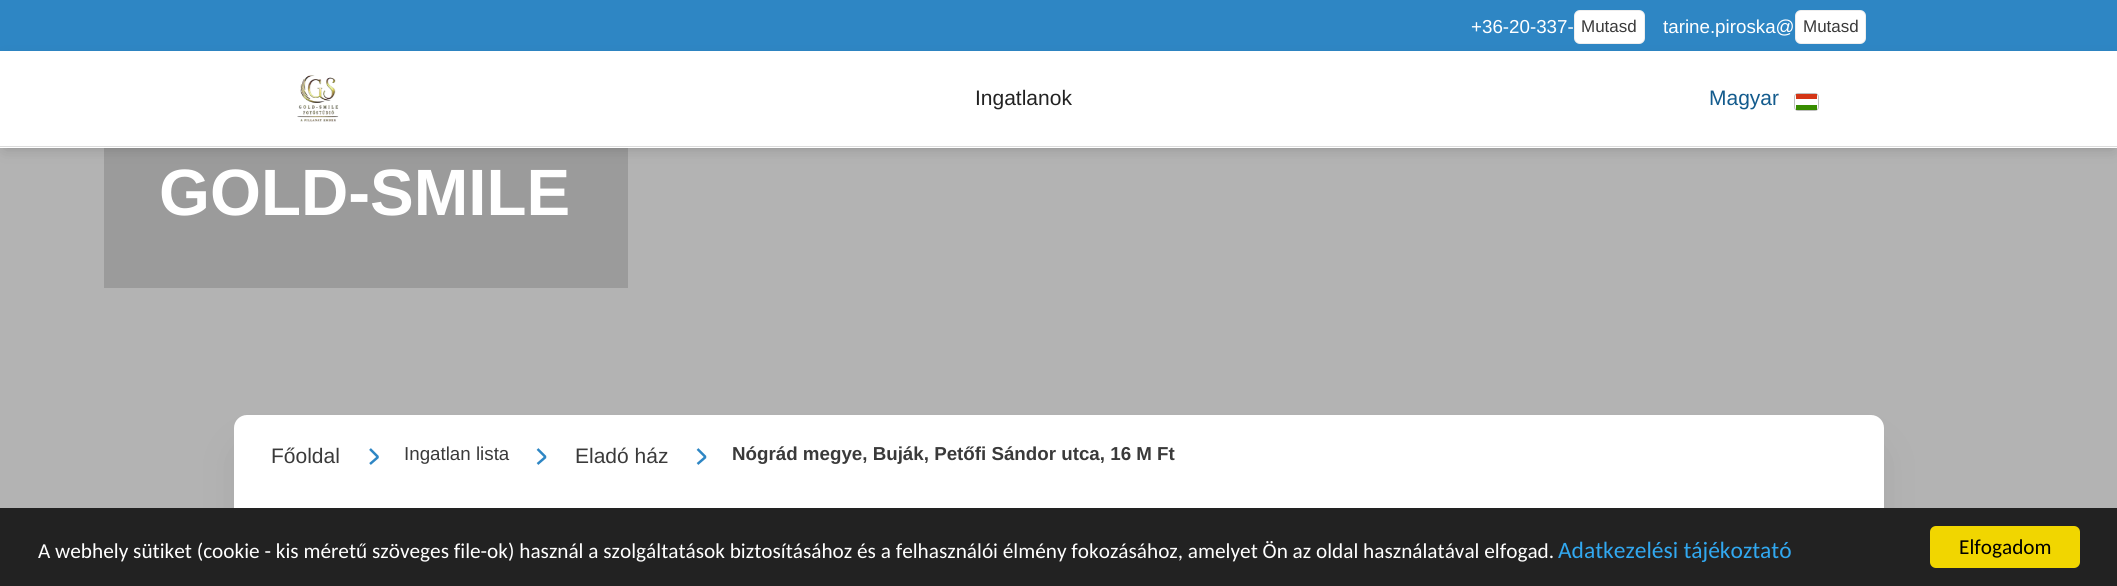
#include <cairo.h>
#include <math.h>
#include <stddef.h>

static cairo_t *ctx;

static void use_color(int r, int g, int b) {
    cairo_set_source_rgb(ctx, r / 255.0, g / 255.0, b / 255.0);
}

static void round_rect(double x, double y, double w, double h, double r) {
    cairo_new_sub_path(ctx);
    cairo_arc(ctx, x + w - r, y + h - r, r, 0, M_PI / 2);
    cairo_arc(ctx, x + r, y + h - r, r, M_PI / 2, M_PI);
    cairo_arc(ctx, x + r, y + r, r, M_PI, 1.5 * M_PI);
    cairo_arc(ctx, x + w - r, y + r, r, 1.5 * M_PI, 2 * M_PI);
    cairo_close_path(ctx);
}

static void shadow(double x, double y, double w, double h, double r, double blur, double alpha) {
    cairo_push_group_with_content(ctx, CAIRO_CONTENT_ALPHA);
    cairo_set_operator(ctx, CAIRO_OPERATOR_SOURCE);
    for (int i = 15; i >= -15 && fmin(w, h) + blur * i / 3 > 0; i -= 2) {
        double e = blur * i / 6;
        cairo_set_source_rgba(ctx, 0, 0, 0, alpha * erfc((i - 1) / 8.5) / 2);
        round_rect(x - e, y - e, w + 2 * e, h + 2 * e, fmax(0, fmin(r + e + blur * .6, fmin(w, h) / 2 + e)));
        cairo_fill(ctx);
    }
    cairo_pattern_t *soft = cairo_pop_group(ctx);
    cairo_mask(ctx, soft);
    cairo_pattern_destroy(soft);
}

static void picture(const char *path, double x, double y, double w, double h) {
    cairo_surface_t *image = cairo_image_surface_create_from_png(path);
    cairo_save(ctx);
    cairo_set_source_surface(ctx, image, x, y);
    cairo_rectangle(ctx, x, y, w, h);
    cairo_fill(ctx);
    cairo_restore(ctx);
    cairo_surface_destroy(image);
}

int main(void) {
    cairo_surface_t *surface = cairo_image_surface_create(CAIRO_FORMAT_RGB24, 2117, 586);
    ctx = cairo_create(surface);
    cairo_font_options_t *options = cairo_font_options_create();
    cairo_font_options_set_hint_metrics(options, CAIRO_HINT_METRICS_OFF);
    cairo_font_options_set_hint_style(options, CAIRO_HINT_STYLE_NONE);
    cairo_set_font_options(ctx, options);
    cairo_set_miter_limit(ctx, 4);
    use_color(179, 179, 179);
    cairo_paint(ctx);
    use_color(46, 134, 196);
    cairo_rectangle(ctx, 0, 0, 2117, 51);
    cairo_fill(ctx);
    cairo_select_font_face(ctx, "Liberation Sans", CAIRO_FONT_SLANT_NORMAL, CAIRO_FONT_WEIGHT_NORMAL);
    cairo_set_font_size(ctx, 18.75);
    use_color(255, 255, 255);
    cairo_move_to(ctx, 1471, 33);
    cairo_show_text(ctx, "+36-20-337-");
    round_rect(1574, 10, 71, 34, 6);
    cairo_fill(ctx);
    round_rect(1574.5, 10.5, 70, 33, 5.5);
    cairo_set_source_rgba(ctx, 0.318, 0.318, 0.318, 0.1);
    cairo_set_line_width(ctx, 1);
    cairo_stroke(ctx);
    cairo_set_font_size(ctx, 17);
    use_color(58, 58, 58);
    cairo_move_to(ctx, 1581, 32);
    cairo_show_text(ctx, "Mutasd");
    cairo_set_font_size(ctx, 18.75);
    use_color(255, 255, 255);
    cairo_move_to(ctx, 1663, 33);
    cairo_show_text(ctx, "tarine.piroska@");
    round_rect(1795, 10, 71, 34, 6);
    cairo_fill(ctx);
    round_rect(1795.5, 10.5, 70, 33, 5.5);
    cairo_set_source_rgba(ctx, 0.318, 0.318, 0.318, 0.1);
    cairo_stroke(ctx);
    cairo_set_font_size(ctx, 17);
    use_color(58, 58, 58);
    cairo_move_to(ctx, 1803, 32);
    cairo_show_text(ctx, "Mutasd");
    use_color(155, 155, 155);
    cairo_rectangle(ctx, 104, 148, 524, 140);
    cairo_fill(ctx);
    use_color(0, 0, 0);
    shadow(5, 61, 2108, 87, 0, 7.5, 0.2);
    use_color(255, 255, 255);
    cairo_rectangle(ctx, 0, 51, 2117, 97);
    cairo_fill(ctx);
    use_color(220, 220, 220);
    cairo_rectangle(ctx, 0, 146, 2117, 1);
    cairo_fill(ctx);
    picture("img1.png", 297, 75, 42, 47);
    cairo_set_font_size(ctx, 21);
    use_color(34, 34, 34);
    cairo_move_to(ctx, 975, 105);
    cairo_show_text(ctx, "Ingatlanok");
    use_color(19, 91, 141);
    cairo_move_to(ctx, 1709, 105);
    cairo_show_text(ctx, "Magyar");
    round_rect(1794.5, 93.5, 24, 17, 3.5);
    use_color(192, 192, 192);
    cairo_stroke(ctx);
    cairo_save(ctx);
    round_rect(1795, 94, 23, 16, 2.5);
    cairo_clip(ctx);
    use_color(255, 255, 255);
    cairo_rectangle(ctx, 1796, 94, 21, 16);
    cairo_fill(ctx);
    cairo_restore(ctx);
    use_color(56, 141, 0);
    cairo_rectangle(ctx, 1796, 105, 21, 5);
    cairo_fill(ctx);
    use_color(212, 53, 22);
    cairo_rectangle(ctx, 1796, 94, 21, 5);
    cairo_fill(ctx);
    cairo_select_font_face(ctx, "Liberation Sans", CAIRO_FONT_SLANT_NORMAL, CAIRO_FONT_WEIGHT_BOLD);
    cairo_set_font_size(ctx, 65.5);
    use_color(255, 255, 255);
    cairo_move_to(ctx, 159, 215);
    cairo_show_text(ctx, "GOLD-SMILE");
    use_color(0, 0, 0);
    shadow(234, 444, 1650, 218, 13, 21, 0.06);
    use_color(255, 255, 255);
    round_rect(234, 415, 1650, 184, 13);
    cairo_fill(ctx);
    cairo_select_font_face(ctx, "Liberation Sans", CAIRO_FONT_SLANT_NORMAL, CAIRO_FONT_WEIGHT_NORMAL);
    cairo_set_font_size(ctx, 21);
    use_color(58, 58, 58);
    cairo_move_to(ctx, 271, 463);
    cairo_show_text(ctx, "Főoldal");
    cairo_new_path(ctx);
    cairo_move_to(ctx, 370, 449);
    cairo_line_to(ctx, 377.5, 456.5);
    cairo_line_to(ctx, 377.5, 457.5);
    cairo_line_to(ctx, 370, 464);
    use_color(46, 134, 196);
    cairo_set_line_width(ctx, 2.5);
    cairo_stroke(ctx);
    cairo_set_font_size(ctx, 18.75);
    use_color(58, 58, 58);
    cairo_move_to(ctx, 404, 460);
    cairo_show_text(ctx, "Ingatlan lista");
    cairo_new_path(ctx);
    cairo_move_to(ctx, 537.5, 449);
    cairo_line_to(ctx, 545, 456.5);
    cairo_line_to(ctx, 545, 457.5);
    cairo_line_to(ctx, 537.5, 464);
    use_color(46, 134, 196);
    cairo_stroke(ctx);
    cairo_set_font_size(ctx, 21);
    use_color(58, 58, 58);
    cairo_move_to(ctx, 575, 463);
    cairo_show_text(ctx, "Eladó ház");
    cairo_new_path(ctx);
    cairo_move_to(ctx, 697.5, 449);
    cairo_line_to(ctx, 705, 456.5);
    cairo_line_to(ctx, 705, 457.5);
    cairo_line_to(ctx, 697.5, 464);
    use_color(46, 134, 196);
    cairo_stroke(ctx);
    cairo_select_font_face(ctx, "Liberation Sans", CAIRO_FONT_SLANT_NORMAL, CAIRO_FONT_WEIGHT_BOLD);
    cairo_set_font_size(ctx, 18.75);
    use_color(58, 58, 58);
    cairo_move_to(ctx, 732, 460);
    cairo_show_text(ctx, "Nógrád megye, Buják, Petőfi Sándor utca, 16 M Ft");
    use_color(34, 34, 34);
    cairo_rectangle(ctx, 0, 508, 2117, 78);
    cairo_fill(ctx);
    cairo_select_font_face(ctx, "Carlito", CAIRO_FONT_SLANT_NORMAL, CAIRO_FONT_WEIGHT_NORMAL);
    cairo_set_font_size(ctx, 21.25);
    use_color(255, 255, 255);
    cairo_move_to(ctx, 38, 558);
    cairo_show_text(ctx, "A webhely sütiket (cookie - kis méretű szöveges file-ok) használ a szolgáltatások biztosításához és a felhasználói élmény fokozásához, amelyet Ön az oldal használatával elfogad.");
    cairo_set_font_size(ctx, 23.5);
    use_color(49, 168, 240);
    cairo_move_to(ctx, 1558, 558);
    cairo_show_text(ctx, "Adatkezelési tájékoztató");
    use_color(241, 214, 0);
    round_rect(1930, 526, 150, 42, 6);
    cairo_fill(ctx);
    cairo_set_font_size(ctx, 21.25);
    use_color(0, 0, 0);
    cairo_move_to(ctx, 1959, 554);
    cairo_show_text(ctx, "Elfogadom");
    cairo_surface_write_to_png(surface, "result.png");
    cairo_font_options_destroy(options);
    cairo_destroy(ctx);
    cairo_surface_destroy(surface);
    return 0;
}
